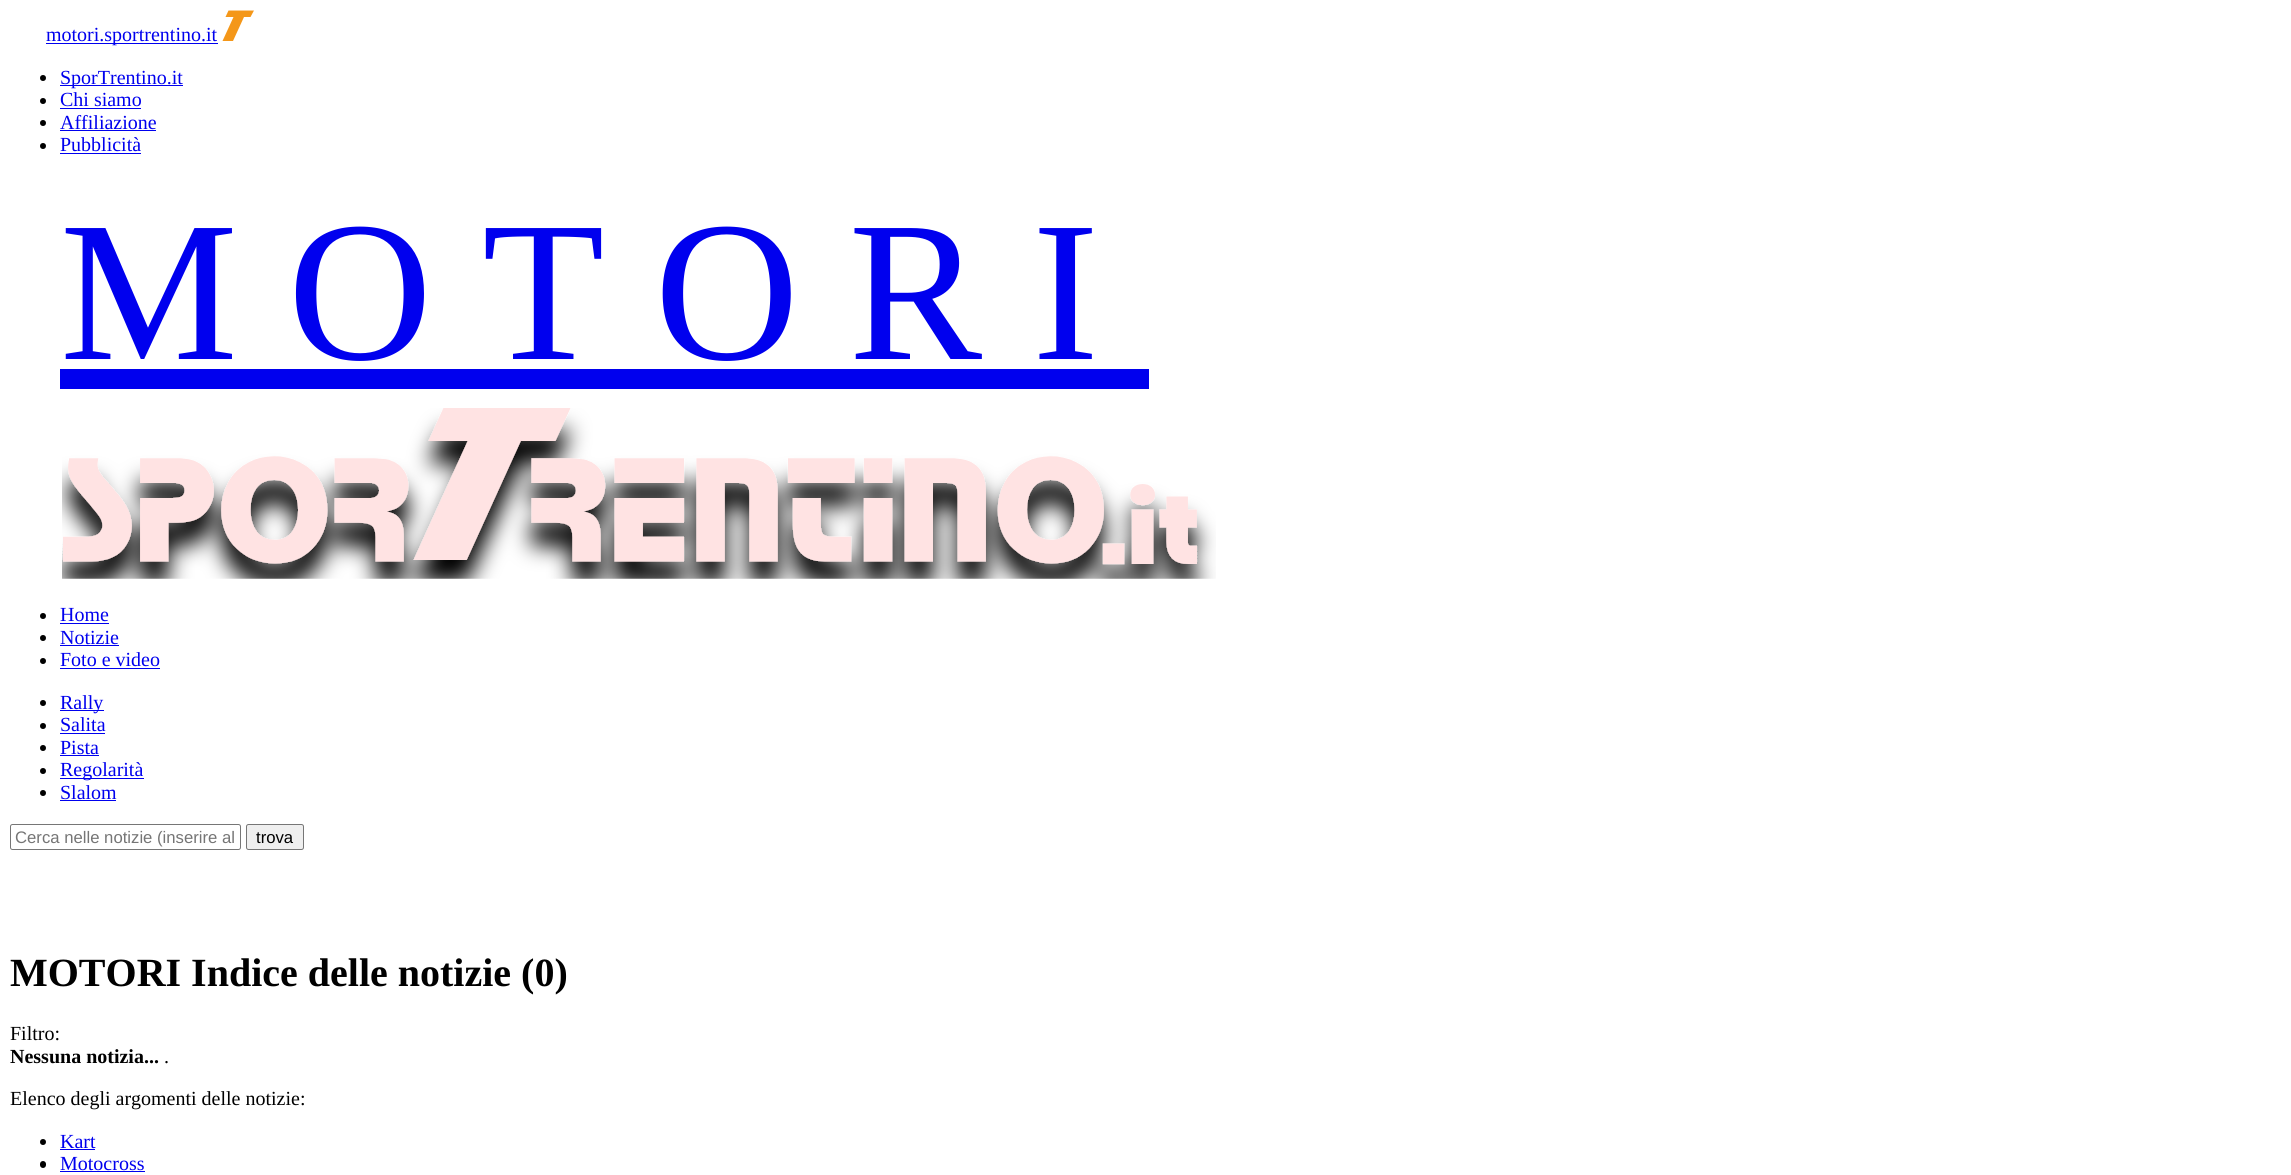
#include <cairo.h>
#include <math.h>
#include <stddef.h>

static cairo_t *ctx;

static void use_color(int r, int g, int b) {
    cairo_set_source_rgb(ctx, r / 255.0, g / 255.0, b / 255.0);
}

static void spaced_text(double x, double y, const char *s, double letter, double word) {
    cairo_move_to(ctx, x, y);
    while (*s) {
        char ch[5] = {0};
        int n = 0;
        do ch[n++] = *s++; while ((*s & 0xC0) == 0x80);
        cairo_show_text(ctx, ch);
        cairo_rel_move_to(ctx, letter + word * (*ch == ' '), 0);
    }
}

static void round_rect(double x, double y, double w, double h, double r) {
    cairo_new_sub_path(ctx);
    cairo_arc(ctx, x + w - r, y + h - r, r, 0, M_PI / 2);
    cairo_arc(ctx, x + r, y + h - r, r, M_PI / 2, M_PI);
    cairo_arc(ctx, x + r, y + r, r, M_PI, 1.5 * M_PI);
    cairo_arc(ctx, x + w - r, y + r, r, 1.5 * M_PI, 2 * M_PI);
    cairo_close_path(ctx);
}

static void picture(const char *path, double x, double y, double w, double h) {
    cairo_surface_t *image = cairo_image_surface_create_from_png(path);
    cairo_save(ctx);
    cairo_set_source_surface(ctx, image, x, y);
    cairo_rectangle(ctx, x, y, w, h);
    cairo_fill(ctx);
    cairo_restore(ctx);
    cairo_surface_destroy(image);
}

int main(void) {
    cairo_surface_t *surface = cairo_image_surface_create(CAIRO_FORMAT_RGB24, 2291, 1175);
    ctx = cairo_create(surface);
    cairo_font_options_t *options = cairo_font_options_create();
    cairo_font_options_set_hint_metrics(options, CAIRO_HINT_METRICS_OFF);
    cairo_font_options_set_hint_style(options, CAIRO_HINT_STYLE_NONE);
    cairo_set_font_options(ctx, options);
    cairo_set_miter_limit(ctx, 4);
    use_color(255, 255, 255);
    cairo_paint(ctx);
    use_color(0, 0, 238);
    cairo_rectangle(ctx, 46, 43, 172, 1);
    cairo_fill(ctx);
    cairo_select_font_face(ctx, "Liberation Serif", CAIRO_FONT_SLANT_NORMAL, CAIRO_FONT_WEIGHT_NORMAL);
    cairo_set_font_size(ctx, 20);
    cairo_move_to(ctx, 46, 41);
    cairo_show_text(ctx, "motori.sportrentino.it");
    use_color(244, 151, 25);
    cairo_new_path(ctx);
    cairo_move_to(ctx, 244, 17);
    cairo_line_to(ctx, 233, 41);
    cairo_line_to(ctx, 222.5, 41);
    cairo_line_to(ctx, 233.5, 17);
    cairo_line_to(ctx, 225.5, 17);
    cairo_line_to(ctx, 228.5, 10.5);
    cairo_line_to(ctx, 254, 10.5);
    cairo_line_to(ctx, 250.5, 17);
    cairo_close_path(ctx);
    cairo_fill(ctx);
    use_color(0, 0, 0);
    cairo_arc(ctx, 43, 78, 3, 0, 2 * M_PI);
    cairo_fill(ctx);
    use_color(0, 0, 238);
    cairo_rectangle(ctx, 60, 85, 123, 1);
    cairo_fill(ctx);
    cairo_move_to(ctx, 60, 84);
    cairo_show_text(ctx, "SporTrentino.it");
    use_color(0, 0, 0);
    cairo_new_path(ctx);
    cairo_arc(ctx, 43, 101, 3, 0, 2 * M_PI);
    cairo_fill(ctx);
    use_color(0, 0, 238);
    cairo_move_to(ctx, 60, 106);
    cairo_show_text(ctx, "Chi siamo");
    cairo_rectangle(ctx, 60, 108, 81, 1);
    cairo_fill(ctx);
    use_color(0, 0, 0);
    cairo_arc(ctx, 43, 123, 3, 0, 2 * M_PI);
    cairo_fill(ctx);
    use_color(0, 0, 238);
    cairo_move_to(ctx, 60, 129);
    cairo_show_text(ctx, "Affiliazione");
    cairo_rectangle(ctx, 60, 130, 96, 1);
    cairo_fill(ctx);
    use_color(0, 0, 0);
    cairo_arc(ctx, 43, 146, 3, 0, 2 * M_PI);
    cairo_fill(ctx);
    use_color(0, 0, 238);
    cairo_move_to(ctx, 60, 151);
    cairo_show_text(ctx, "Pubblicità");
    cairo_rectangle(ctx, 60, 153, 81, 1);
    cairo_fill(ctx);
    cairo_set_font_size(ctx, 200);
    spaced_text(60, 359, "MOTORI", 50, 0);
    cairo_rectangle(ctx, 60, 369, 1089, 20);
    cairo_fill(ctx);
    picture("img1.png", 62, 408, 1154, 171);
    use_color(0, 0, 0);
    cairo_arc(ctx, 43, 616, 3, 0, 2 * M_PI);
    cairo_fill(ctx);
    cairo_set_font_size(ctx, 20);
    use_color(0, 0, 238);
    cairo_move_to(ctx, 60, 621);
    cairo_show_text(ctx, "Home");
    cairo_rectangle(ctx, 60, 623, 49, 1);
    cairo_fill(ctx);
    use_color(0, 0, 0);
    cairo_arc(ctx, 43, 638, 3, 0, 2 * M_PI);
    cairo_fill(ctx);
    use_color(0, 0, 238);
    cairo_move_to(ctx, 60, 644);
    cairo_show_text(ctx, "Notizie");
    cairo_rectangle(ctx, 60, 645, 59, 1);
    cairo_fill(ctx);
    use_color(0, 0, 0);
    cairo_arc(ctx, 43, 661, 3, 0, 2 * M_PI);
    cairo_fill(ctx);
    use_color(0, 0, 238);
    cairo_move_to(ctx, 60, 666);
    cairo_show_text(ctx, "Foto e video");
    cairo_rectangle(ctx, 60, 668, 100, 1);
    cairo_fill(ctx);
    use_color(0, 0, 0);
    cairo_arc(ctx, 43, 703, 3, 0, 2 * M_PI);
    cairo_fill(ctx);
    use_color(0, 0, 238);
    cairo_rectangle(ctx, 60, 710, 44, 1);
    cairo_fill(ctx);
    cairo_move_to(ctx, 60, 709);
    cairo_show_text(ctx, "Rally");
    use_color(0, 0, 0);
    cairo_new_path(ctx);
    cairo_arc(ctx, 43, 726, 3, 0, 2 * M_PI);
    cairo_fill(ctx);
    use_color(0, 0, 238);
    cairo_move_to(ctx, 60, 731);
    cairo_show_text(ctx, "Salita");
    cairo_rectangle(ctx, 60, 733, 45, 1);
    cairo_fill(ctx);
    use_color(0, 0, 0);
    cairo_arc(ctx, 43, 748, 3, 0, 2 * M_PI);
    cairo_fill(ctx);
    use_color(0, 0, 238);
    cairo_move_to(ctx, 60, 754);
    cairo_show_text(ctx, "Pista");
    cairo_rectangle(ctx, 60, 755, 39, 1);
    cairo_fill(ctx);
    use_color(0, 0, 0);
    cairo_arc(ctx, 43, 771, 3, 0, 2 * M_PI);
    cairo_fill(ctx);
    use_color(0, 0, 238);
    cairo_rectangle(ctx, 60, 778, 84, 1);
    cairo_fill(ctx);
    cairo_move_to(ctx, 60, 776);
    cairo_show_text(ctx, "Regolarità");
    use_color(0, 0, 0);
    cairo_new_path(ctx);
    cairo_arc(ctx, 43, 793, 3, 0, 2 * M_PI);
    cairo_fill(ctx);
    use_color(0, 0, 238);
    cairo_move_to(ctx, 60, 799);
    cairo_show_text(ctx, "Slalom");
    cairo_rectangle(ctx, 60, 800, 56, 1);
    cairo_fill(ctx);
    round_rect(10.5, 824.5, 230, 25, 2);
    use_color(118, 118, 118);
    cairo_set_line_width(ctx, 1);
    cairo_stroke(ctx);
    cairo_select_font_face(ctx, "Liberation Sans", CAIRO_FONT_SLANT_NORMAL, CAIRO_FONT_WEIGHT_NORMAL);
    cairo_set_font_size(ctx, 16.7);
    use_color(117, 117, 117);
    cairo_move_to(ctx, 15, 843);
    cairo_show_text(ctx, "Cerca nelle notizie (inserire al");
    use_color(239, 239, 239);
    round_rect(246.5, 824.5, 57, 25, 2);
    cairo_fill_preserve(ctx);
    use_color(118, 118, 118);
    cairo_stroke(ctx);
    use_color(0, 0, 0);
    cairo_move_to(ctx, 256, 843);
    cairo_show_text(ctx, "trova");
    cairo_select_font_face(ctx, "Liberation Serif", CAIRO_FONT_SLANT_NORMAL, CAIRO_FONT_WEIGHT_BOLD);
    cairo_set_font_size(ctx, 40);
    cairo_move_to(ctx, 10, 986);
    cairo_show_text(ctx, "MOTORI Indice delle notizie (0)");
    cairo_select_font_face(ctx, "Liberation Serif", CAIRO_FONT_SLANT_NORMAL, CAIRO_FONT_WEIGHT_NORMAL);
    cairo_set_font_size(ctx, 20);
    cairo_move_to(ctx, 10, 1040);
    cairo_show_text(ctx, "Filtro:");
    cairo_select_font_face(ctx, "Liberation Serif", CAIRO_FONT_SLANT_NORMAL, CAIRO_FONT_WEIGHT_BOLD);
    cairo_move_to(ctx, 10, 1063);
    cairo_show_text(ctx, "Nessuna notizia...");
    cairo_select_font_face(ctx, "Liberation Serif", CAIRO_FONT_SLANT_NORMAL, CAIRO_FONT_WEIGHT_NORMAL);
    cairo_move_to(ctx, 164, 1063);
    cairo_show_text(ctx, ".");
    cairo_move_to(ctx, 10, 1105);
    cairo_show_text(ctx, "Elenco degli argomenti delle notizie:");
    cairo_new_path(ctx);
    cairo_arc(ctx, 43, 1142, 3, 0, 2 * M_PI);
    cairo_fill(ctx);
    use_color(0, 0, 238);
    cairo_move_to(ctx, 60, 1148);
    cairo_show_text(ctx, "Kart");
    cairo_rectangle(ctx, 60, 1149, 35, 1);
    cairo_fill(ctx);
    use_color(0, 0, 0);
    round_rect(40, 1161, 6, 7, 3);
    cairo_fill(ctx);
    use_color(0, 0, 238);
    cairo_move_to(ctx, 60, 1170);
    cairo_show_text(ctx, "Motocross");
    cairo_rectangle(ctx, 60, 1171, 85, 1);
    cairo_fill(ctx);
    cairo_surface_write_to_png(surface, "result.png");
    cairo_font_options_destroy(options);
    cairo_destroy(ctx);
    cairo_surface_destroy(surface);
    return 0;
}
